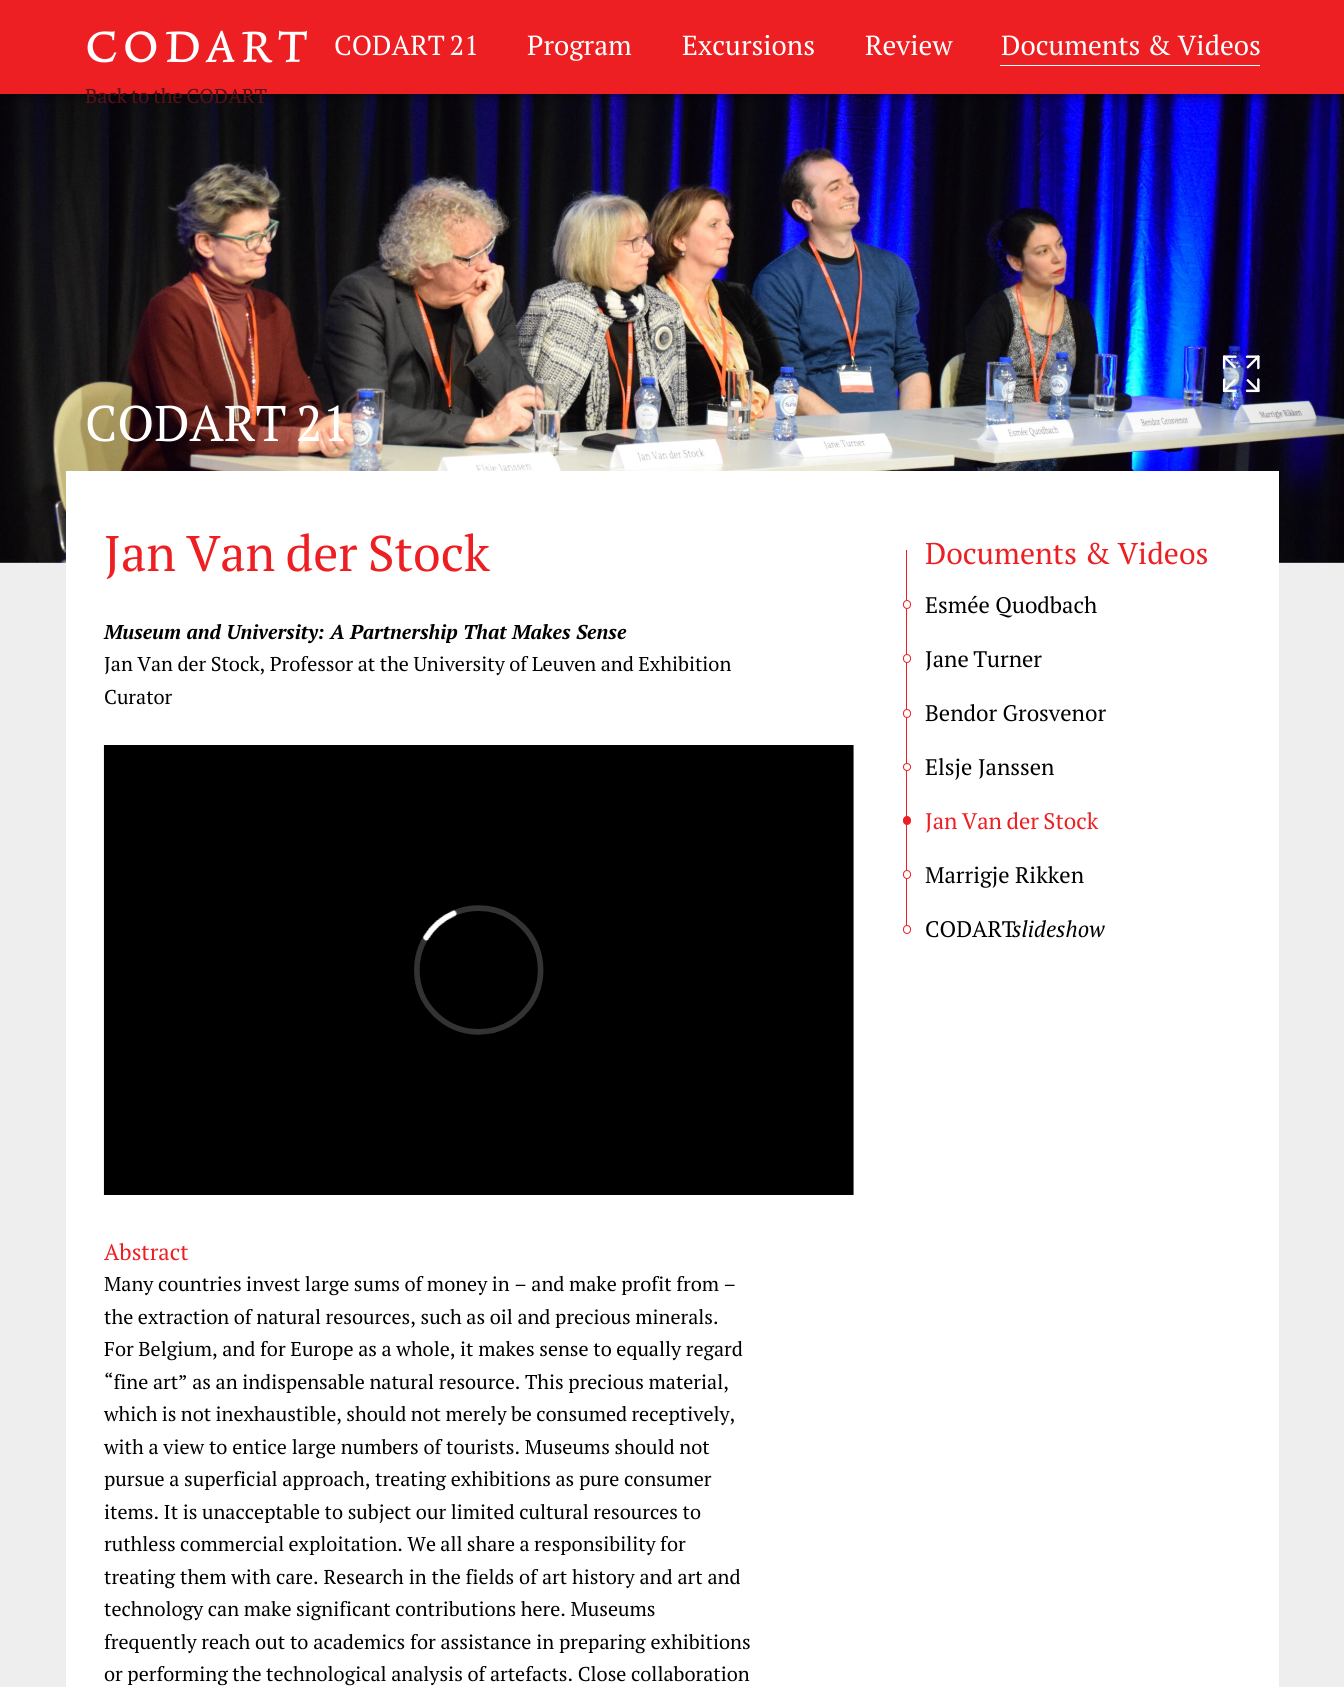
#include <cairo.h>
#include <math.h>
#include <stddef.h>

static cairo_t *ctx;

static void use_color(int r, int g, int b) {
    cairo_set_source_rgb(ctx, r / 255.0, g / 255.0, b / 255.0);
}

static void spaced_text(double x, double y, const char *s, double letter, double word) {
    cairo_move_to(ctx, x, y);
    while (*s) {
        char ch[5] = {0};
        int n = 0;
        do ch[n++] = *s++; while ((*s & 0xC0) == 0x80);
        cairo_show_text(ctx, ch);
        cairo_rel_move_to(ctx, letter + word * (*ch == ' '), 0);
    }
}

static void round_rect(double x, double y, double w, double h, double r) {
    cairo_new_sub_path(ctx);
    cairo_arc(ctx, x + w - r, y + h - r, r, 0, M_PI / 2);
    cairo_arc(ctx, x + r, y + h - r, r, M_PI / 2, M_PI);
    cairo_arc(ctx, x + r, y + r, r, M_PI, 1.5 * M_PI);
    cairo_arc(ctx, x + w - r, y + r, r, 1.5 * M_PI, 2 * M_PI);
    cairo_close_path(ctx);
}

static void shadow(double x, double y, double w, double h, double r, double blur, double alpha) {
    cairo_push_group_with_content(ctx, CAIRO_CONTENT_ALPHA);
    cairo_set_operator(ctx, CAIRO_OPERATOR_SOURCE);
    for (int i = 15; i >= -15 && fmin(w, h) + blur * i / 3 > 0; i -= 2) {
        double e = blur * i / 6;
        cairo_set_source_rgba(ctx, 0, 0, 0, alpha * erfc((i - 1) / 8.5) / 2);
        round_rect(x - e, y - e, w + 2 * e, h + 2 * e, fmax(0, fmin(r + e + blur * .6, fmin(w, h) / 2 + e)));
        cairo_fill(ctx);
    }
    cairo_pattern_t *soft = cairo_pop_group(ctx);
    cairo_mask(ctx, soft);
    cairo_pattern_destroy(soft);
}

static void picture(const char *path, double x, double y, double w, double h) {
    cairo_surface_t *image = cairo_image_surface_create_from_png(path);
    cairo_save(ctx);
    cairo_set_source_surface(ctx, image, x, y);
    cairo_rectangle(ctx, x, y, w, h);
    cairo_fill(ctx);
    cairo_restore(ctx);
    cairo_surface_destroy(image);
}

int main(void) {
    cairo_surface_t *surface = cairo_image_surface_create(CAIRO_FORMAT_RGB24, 1344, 1687);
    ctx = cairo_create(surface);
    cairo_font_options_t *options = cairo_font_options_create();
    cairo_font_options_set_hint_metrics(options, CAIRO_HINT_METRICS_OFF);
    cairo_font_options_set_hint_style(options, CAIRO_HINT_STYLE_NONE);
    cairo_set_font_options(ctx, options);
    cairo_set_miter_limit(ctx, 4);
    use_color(238, 238, 238);
    cairo_paint(ctx);
    picture("img3.png", 0, 562, 1344, 1);
    picture("img2.png", 0, 94, 1344, 469);
    use_color(0, 0, 0);
    shadow(0, 0, 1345, 94, 0, 6, 0.65);
    use_color(237, 31, 35);
    cairo_rectangle(ctx, 0, 0, 1344, 94);
    cairo_fill(ctx);
    cairo_select_font_face(ctx, "PT Serif", CAIRO_FONT_SLANT_NORMAL, CAIRO_FONT_WEIGHT_NORMAL);
    cairo_set_font_size(ctx, 27.5);
    use_color(255, 255, 255);
    spaced_text(334, 55, "CODART 21", 0, -2);
    cairo_move_to(ctx, 527, 55);
    cairo_show_text(ctx, "Program");
    cairo_move_to(ctx, 682, 55);
    cairo_show_text(ctx, "Excursions");
    cairo_move_to(ctx, 865, 55);
    cairo_show_text(ctx, "Review");
    cairo_move_to(ctx, 1001, 55);
    cairo_show_text(ctx, "Documents & Videos");
    cairo_rectangle(ctx, 1000, 65, 260, 1);
    cairo_fill(ctx);
    picture("img1.png", 87, 30, 221, 33);
    cairo_set_font_size(ctx, 20);
    use_color(84, 17, 22);
    spaced_text(85, 103, "Back to the CODART", 0, -1);
    picture("img4.png", 1222, 355, 15, 15);
    picture("img5.png", 1245, 355, 15, 15);
    picture("img6.png", 1222, 378, 15, 15);
    picture("img7.png", 1245, 378, 15, 15);
    cairo_set_font_size(ctx, 50);
    use_color(255, 255, 255);
    spaced_text(85, 441, "CODART 21", 0, -3);
    cairo_rectangle(ctx, 66, 471, 1213, 1216);
    cairo_fill(ctx);
    use_color(237, 31, 35);
    spaced_text(104, 571, "Jan Van der Stock", 0, -2);
    cairo_select_font_face(ctx, "PT Serif", CAIRO_FONT_SLANT_ITALIC, CAIRO_FONT_WEIGHT_BOLD);
    cairo_set_font_size(ctx, 20);
    use_color(0, 0, 0);
    cairo_move_to(ctx, 104, 639);
    cairo_show_text(ctx, "Museum and University: A Partnership That Makes Sense");
    cairo_select_font_face(ctx, "PT Serif", CAIRO_FONT_SLANT_NORMAL, CAIRO_FONT_WEIGHT_NORMAL);
    spaced_text(104, 671, "Jan Van der Stock, Professor at the University of Leuven and Exhibition", 0, -0.4);
    cairo_move_to(ctx, 104, 704);
    cairo_show_text(ctx, "Curator");
    picture("img8.png", 103, 745, 751, 450);
    cairo_set_font_size(ctx, 22.5);
    use_color(237, 31, 35);
    cairo_move_to(ctx, 104, 1260);
    cairo_show_text(ctx, "Abstract");
    cairo_set_font_size(ctx, 20);
    use_color(0, 0, 0);
    spaced_text(104, 1291, "Many countries invest large sums of money in – and make profit from –", 0, -0.3);
    spaced_text(104, 1324, "the extraction of natural resources, such as oil and precious minerals.", 0, -0.25);
    spaced_text(104, 1356, "For Belgium, and for Europe as a whole, it makes sense to equally regard", 0, -0.2);
    spaced_text(104, 1389, "“fine art” as an indispensable natural resource. This precious material,", 0, -0.25);
    spaced_text(104, 1421, "which is not inexhaustible, should not merely be consumed receptively,", 0, -0.5);
    spaced_text(104, 1454, "with a view to entice large numbers of tourists. Museums should not", 0, -0.1);
    spaced_text(104, 1486, "pursue a superficial approach, treating exhibitions as pure consumer", 0, -0.25);
    spaced_text(104, 1519, "items. It is unacceptable to subject our limited cultural resources to", 0, -0.25);
    spaced_text(104, 1551, "ruthless commercial exploitation. We all share a responsibility for", 0, -0.5);
    cairo_move_to(ctx, 104, 1584);
    cairo_show_text(ctx, "treating them with care. Research in the fields of art history and art and");
    spaced_text(104, 1616, "technology can make significant contributions here. Museums", 0, -0.25);
    cairo_move_to(ctx, 104, 1649);
    cairo_show_text(ctx, "frequently reach out to academics for assistance in preparing exhibitions");
    spaced_text(104, 1681, "or performing the technological analysis of artefacts. Close collaboration", 0, -0.25);
    cairo_set_font_size(ctx, 30);
    use_color(237, 31, 35);
    cairo_move_to(ctx, 925, 564);
    cairo_show_text(ctx, "Documents & Videos");
    cairo_rectangle(ctx, 906, 550, 1, 379);
    cairo_fill(ctx);
    cairo_set_font_size(ctx, 22.5);
    use_color(0, 0, 0);
    cairo_move_to(ctx, 925, 613);
    cairo_show_text(ctx, "Esmée Quodbach");
    use_color(255, 255, 255);
    round_rect(903.5, 600.5, 7, 8, 3.5);
    cairo_fill_preserve(ctx);
    use_color(237, 31, 35);
    cairo_set_line_width(ctx, 1);
    cairo_stroke(ctx);
    use_color(255, 255, 255);
    round_rect(903.5, 654.5, 7, 8, 3.5);
    cairo_fill_preserve(ctx);
    use_color(237, 31, 35);
    cairo_stroke(ctx);
    use_color(0, 0, 0);
    spaced_text(925, 667, "Jane Turner", 0, -1);
    use_color(255, 255, 255);
    round_rect(903.5, 709.5, 7, 8, 3.5);
    cairo_fill_preserve(ctx);
    use_color(237, 31, 35);
    cairo_stroke(ctx);
    use_color(0, 0, 0);
    cairo_move_to(ctx, 925, 721);
    cairo_show_text(ctx, "Bendor Grosvenor");
    use_color(255, 255, 255);
    cairo_new_path(ctx);
    cairo_arc(ctx, 907, 767, 3.5, 0, 2 * M_PI);
    cairo_fill_preserve(ctx);
    use_color(237, 31, 35);
    cairo_stroke(ctx);
    use_color(0, 0, 0);
    cairo_move_to(ctx, 925, 775);
    cairo_show_text(ctx, "Elsje Janssen");
    use_color(237, 31, 35);
    round_rect(903.5, 816.5, 7, 8, 3.5);
    cairo_fill_preserve(ctx);
    cairo_stroke(ctx);
    spaced_text(925, 829, "Jan Van der Stock", 0, -1);
    use_color(255, 255, 255);
    round_rect(903.5, 870.5, 7, 8, 3.5);
    cairo_fill_preserve(ctx);
    use_color(237, 31, 35);
    cairo_stroke(ctx);
    use_color(0, 0, 0);
    cairo_move_to(ctx, 925, 883);
    cairo_show_text(ctx, "Marrigje Rikken");
    use_color(255, 255, 255);
    round_rect(903.5, 925.5, 7, 8, 3.5);
    cairo_fill_preserve(ctx);
    use_color(237, 31, 35);
    cairo_stroke(ctx);
    use_color(0, 0, 0);
    cairo_move_to(ctx, 925, 937);
    cairo_show_text(ctx, "CODART");
    cairo_select_font_face(ctx, "PT Serif", CAIRO_FONT_SLANT_ITALIC, CAIRO_FONT_WEIGHT_NORMAL);
    cairo_move_to(ctx, 1012, 937);
    cairo_show_text(ctx, "slideshow");
    cairo_surface_write_to_png(surface, "result.png");
    cairo_font_options_destroy(options);
    cairo_destroy(ctx);
    cairo_surface_destroy(surface);
    return 0;
}
